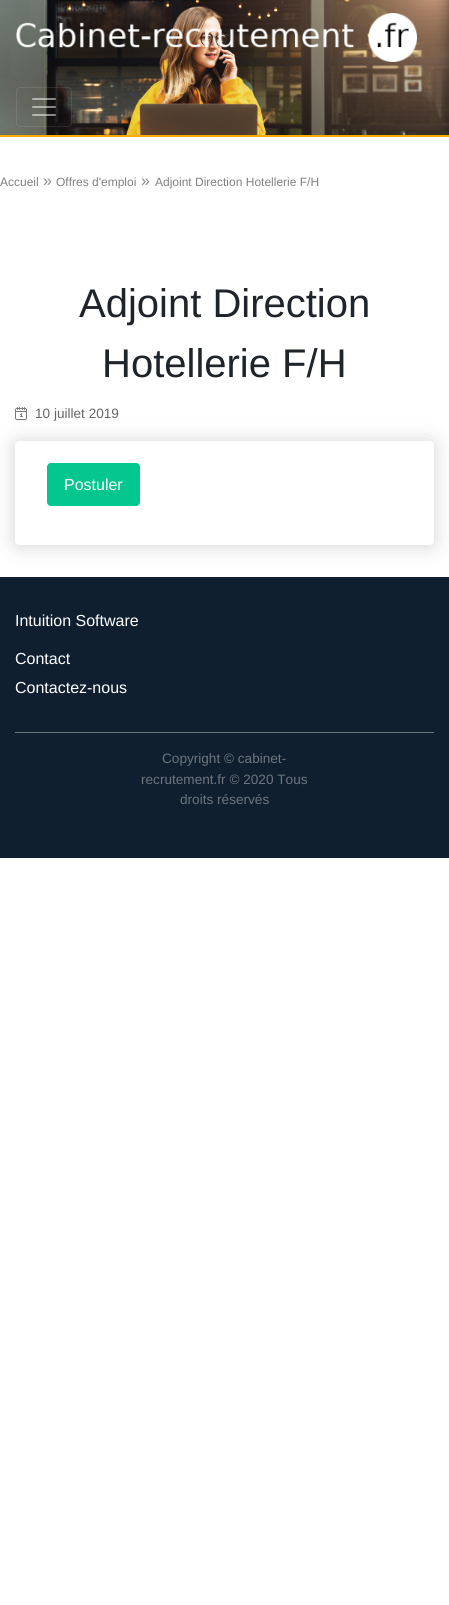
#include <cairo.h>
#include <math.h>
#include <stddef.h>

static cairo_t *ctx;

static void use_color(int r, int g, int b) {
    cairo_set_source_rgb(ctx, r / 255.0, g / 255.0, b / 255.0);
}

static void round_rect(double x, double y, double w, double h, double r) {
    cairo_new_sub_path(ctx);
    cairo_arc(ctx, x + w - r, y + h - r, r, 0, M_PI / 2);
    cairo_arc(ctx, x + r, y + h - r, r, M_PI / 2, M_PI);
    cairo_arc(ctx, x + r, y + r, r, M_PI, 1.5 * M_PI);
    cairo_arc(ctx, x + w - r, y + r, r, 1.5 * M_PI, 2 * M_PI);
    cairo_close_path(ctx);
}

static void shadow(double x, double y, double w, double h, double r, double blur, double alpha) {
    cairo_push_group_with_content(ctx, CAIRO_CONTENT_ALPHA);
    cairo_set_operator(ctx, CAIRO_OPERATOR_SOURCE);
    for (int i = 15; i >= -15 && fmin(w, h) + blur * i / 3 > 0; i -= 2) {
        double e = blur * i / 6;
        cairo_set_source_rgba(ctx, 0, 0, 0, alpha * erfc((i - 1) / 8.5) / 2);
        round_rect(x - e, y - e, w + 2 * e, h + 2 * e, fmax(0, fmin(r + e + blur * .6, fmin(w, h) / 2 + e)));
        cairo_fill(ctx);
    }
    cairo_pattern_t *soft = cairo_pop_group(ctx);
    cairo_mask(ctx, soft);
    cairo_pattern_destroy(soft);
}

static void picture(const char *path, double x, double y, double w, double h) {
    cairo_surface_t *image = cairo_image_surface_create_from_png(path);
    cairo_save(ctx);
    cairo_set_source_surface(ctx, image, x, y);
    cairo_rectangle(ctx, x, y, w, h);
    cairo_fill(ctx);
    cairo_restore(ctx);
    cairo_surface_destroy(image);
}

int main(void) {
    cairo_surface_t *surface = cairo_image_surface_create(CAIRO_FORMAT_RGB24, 449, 1605);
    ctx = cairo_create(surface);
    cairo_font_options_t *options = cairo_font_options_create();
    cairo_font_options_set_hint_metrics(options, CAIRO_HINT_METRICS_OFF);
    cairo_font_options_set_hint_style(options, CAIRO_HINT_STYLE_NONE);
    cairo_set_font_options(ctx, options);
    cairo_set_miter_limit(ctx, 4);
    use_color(255, 255, 255);
    cairo_paint(ctx);
    picture("img1.png", 0, 0, 449, 135);
    use_color(255, 170, 0);
    cairo_rectangle(ctx, 0, 135, 449, 2);
    cairo_fill(ctx);
    picture("img2.png", 16, 13, 401, 49);
    round_rect(16.5, 87.5, 55, 39, 3.5);
    cairo_set_source_rgba(ctx, 1, 1, 1, 0.1);
    cairo_set_line_width(ctx, 1);
    cairo_stroke(ctx);
    picture("img3.png", 32, 98, 24, 18);
    cairo_select_font_face(ctx, "Liberation Sans", CAIRO_FONT_SLANT_NORMAL, CAIRO_FONT_WEIGHT_NORMAL);
    cairo_set_font_size(ctx, 12);
    use_color(128, 128, 128);
    cairo_move_to(ctx, 0, 186);
    cairo_show_text(ctx, "Accueil");
    cairo_set_font_size(ctx, 16);
    use_color(131, 136, 139);
    cairo_move_to(ctx, 43, 186);
    cairo_show_text(ctx, "»");
    cairo_set_font_size(ctx, 12);
    use_color(128, 128, 128);
    cairo_move_to(ctx, 56, 186);
    cairo_show_text(ctx, "Offres d'emploi");
    cairo_set_font_size(ctx, 16);
    use_color(131, 136, 139);
    cairo_move_to(ctx, 141, 186);
    cairo_show_text(ctx, "»");
    cairo_set_font_size(ctx, 12);
    use_color(128, 128, 128);
    cairo_move_to(ctx, 155, 186);
    cairo_show_text(ctx, "Adjoint Direction Hotellerie F/H");
    cairo_set_font_size(ctx, 40);
    use_color(31, 36, 43);
    cairo_move_to(ctx, 79, 317);
    cairo_show_text(ctx, "Adjoint Direction");
    cairo_move_to(ctx, 102, 377);
    cairo_show_text(ctx, "Hotellerie F/H");
    picture("img4.png", 15, 407, 12, 13);
    cairo_set_font_size(ctx, 13.6);
    use_color(102, 102, 102);
    cairo_move_to(ctx, 35, 418);
    cairo_show_text(ctx, "10 juillet 2019");
    use_color(211, 211, 211);
    shadow(15, 442, 419, 104, 4, 10, 1);
    use_color(255, 255, 255);
    round_rect(15, 441, 419, 104, 4);
    cairo_fill(ctx);
    use_color(4, 199, 143);
    round_rect(47.5, 463.5, 92, 42, 3.5);
    cairo_fill_preserve(ctx);
    cairo_stroke(ctx);
    cairo_set_font_size(ctx, 16);
    use_color(255, 255, 255);
    cairo_move_to(ctx, 64, 490);
    cairo_show_text(ctx, "Postuler");
    use_color(15, 31, 47);
    cairo_rectangle(ctx, 0, 577, 449, 281);
    cairo_fill(ctx);
    use_color(255, 255, 255);
    cairo_move_to(ctx, 15, 626);
    cairo_show_text(ctx, "Intuition Software");
    cairo_move_to(ctx, 15, 664);
    cairo_show_text(ctx, "Contact");
    cairo_move_to(ctx, 15, 693);
    cairo_show_text(ctx, "Contactez-nous");
    use_color(108, 117, 125);
    cairo_rectangle(ctx, 15, 732, 419, 1);
    cairo_fill(ctx);
    cairo_set_font_size(ctx, 13.6);
    cairo_move_to(ctx, 162, 763);
    cairo_show_text(ctx, "Copyright © cabinet-");
    cairo_move_to(ctx, 141, 784);
    cairo_show_text(ctx, "recrutement.fr © 2020 Tous");
    cairo_move_to(ctx, 180, 804);
    cairo_show_text(ctx, "droits réservés");
    cairo_surface_write_to_png(surface, "result.png");
    cairo_font_options_destroy(options);
    cairo_destroy(ctx);
    cairo_surface_destroy(surface);
    return 0;
}
